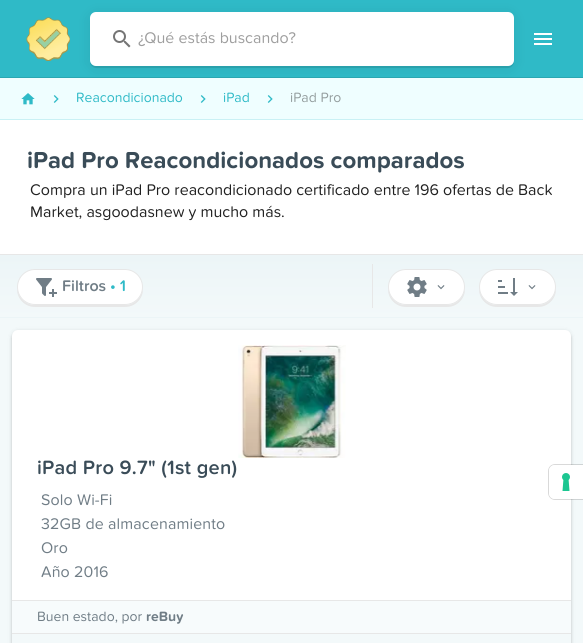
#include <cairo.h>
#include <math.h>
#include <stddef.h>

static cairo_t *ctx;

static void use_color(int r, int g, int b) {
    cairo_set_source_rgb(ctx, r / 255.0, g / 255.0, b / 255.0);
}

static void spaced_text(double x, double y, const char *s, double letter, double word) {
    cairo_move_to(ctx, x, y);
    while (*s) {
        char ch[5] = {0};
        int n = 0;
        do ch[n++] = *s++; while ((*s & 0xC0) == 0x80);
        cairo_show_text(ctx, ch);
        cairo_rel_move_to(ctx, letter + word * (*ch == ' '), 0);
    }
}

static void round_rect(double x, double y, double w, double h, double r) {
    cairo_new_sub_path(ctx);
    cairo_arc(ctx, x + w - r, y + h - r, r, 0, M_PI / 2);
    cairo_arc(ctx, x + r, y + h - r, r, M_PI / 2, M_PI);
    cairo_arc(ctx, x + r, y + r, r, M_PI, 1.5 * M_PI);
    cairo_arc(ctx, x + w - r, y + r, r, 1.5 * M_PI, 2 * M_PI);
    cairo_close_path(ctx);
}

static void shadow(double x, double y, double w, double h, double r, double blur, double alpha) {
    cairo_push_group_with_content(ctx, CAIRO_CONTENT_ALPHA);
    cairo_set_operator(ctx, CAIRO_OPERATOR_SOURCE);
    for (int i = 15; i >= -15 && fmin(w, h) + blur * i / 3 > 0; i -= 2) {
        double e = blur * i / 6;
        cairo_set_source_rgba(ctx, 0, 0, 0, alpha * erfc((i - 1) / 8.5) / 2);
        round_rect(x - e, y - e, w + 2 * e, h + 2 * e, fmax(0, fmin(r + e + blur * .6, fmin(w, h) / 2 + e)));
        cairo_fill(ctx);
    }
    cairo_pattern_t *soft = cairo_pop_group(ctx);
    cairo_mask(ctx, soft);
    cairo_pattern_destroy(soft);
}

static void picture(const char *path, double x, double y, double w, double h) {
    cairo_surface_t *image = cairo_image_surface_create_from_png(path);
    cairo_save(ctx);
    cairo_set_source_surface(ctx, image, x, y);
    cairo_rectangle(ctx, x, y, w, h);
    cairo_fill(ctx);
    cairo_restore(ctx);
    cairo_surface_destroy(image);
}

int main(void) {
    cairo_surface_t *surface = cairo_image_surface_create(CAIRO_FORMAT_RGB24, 583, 643);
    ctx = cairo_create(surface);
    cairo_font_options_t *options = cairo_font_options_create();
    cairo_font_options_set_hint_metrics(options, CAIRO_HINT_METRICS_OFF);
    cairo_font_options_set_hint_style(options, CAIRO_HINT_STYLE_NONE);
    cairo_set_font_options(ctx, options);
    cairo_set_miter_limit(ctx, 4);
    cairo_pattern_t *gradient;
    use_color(47, 186, 199);
    cairo_paint(ctx);
    use_color(42, 167, 178);
    cairo_rectangle(ctx, 0, 77, 583, 1);
    cairo_fill(ctx);
    picture("img1.png", 26, 17, 44, 44);
    use_color(0, 0, 0);
    shadow(90, 14, 424, 54, 6, 7.5, 0.08);
    cairo_set_source_rgba(ctx, 0, 0, 0, 0.1);
    cairo_new_path(ctx);
    cairo_move_to(ctx, 90, 60);
    cairo_line_to(ctx, 90, 62);
    cairo_curve_to(ctx, 90, 65, 93, 68, 96, 68);
    cairo_line_to(ctx, 508, 68);
    cairo_curve_to(ctx, 511, 68, 514, 65, 514, 62);
    cairo_line_to(ctx, 514, 60);
    cairo_curve_to(ctx, 514, 63, 511, 66, 508, 66);
    cairo_line_to(ctx, 96, 66);
    cairo_curve_to(ctx, 93, 66, 90, 63, 90, 60);
    cairo_close_path(ctx);
    cairo_fill(ctx);
    use_color(255, 255, 255);
    round_rect(90, 12, 424, 54, 6);
    cairo_fill(ctx);
    picture("img2.png", 113, 30, 18, 18);
    cairo_select_font_face(ctx, "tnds", CAIRO_FONT_SLANT_NORMAL, CAIRO_FONT_WEIGHT_NORMAL);
    cairo_set_font_size(ctx, 16);
    use_color(158, 158, 158);
    cairo_move_to(ctx, 138, 43);
    cairo_show_text(ctx, "¿Qué estás buscando?");
    picture("img3.png", 534, 33, 18, 12);
    use_color(243, 249, 250);
    cairo_rectangle(ctx, 0, 318, 583, 325);
    cairo_fill(ctx);
    use_color(239, 254, 255);
    cairo_rectangle(ctx, 0, 78, 583, 41);
    cairo_fill(ctx);
    use_color(201, 241, 245);
    cairo_rectangle(ctx, 0, 119, 583, 1);
    cairo_fill(ctx);
    picture("img4.png", 21, 93, 14, 12);
    picture("img5.png", 53, 95, 6, 8);
    cairo_set_font_size(ctx, 14);
    use_color(47, 186, 199);
    cairo_move_to(ctx, 76, 102);
    cairo_show_text(ctx, "Reacondicionado");
    picture("img5.png", 200, 95, 6, 8);
    cairo_move_to(ctx, 223, 102);
    cairo_show_text(ctx, "iPad");
    picture("img5.png", 267, 95, 6, 8);
    use_color(148, 157, 158);
    cairo_move_to(ctx, 290, 102);
    cairo_show_text(ctx, "iPad Pro");
    use_color(255, 255, 255);
    cairo_rectangle(ctx, 0, 120, 583, 134);
    cairo_fill(ctx);
    use_color(231, 231, 231);
    cairo_rectangle(ctx, 0, 254, 583, 1);
    cairo_fill(ctx);
    cairo_select_font_face(ctx, "tnds", CAIRO_FONT_SLANT_NORMAL, CAIRO_FONT_WEIGHT_BOLD);
    cairo_set_font_size(ctx, 24);
    use_color(58, 76, 88);
    cairo_move_to(ctx, 27, 168);
    cairo_show_text(ctx, "iPad Pro Reacondicionados comparados");
    cairo_select_font_face(ctx, "tnds", CAIRO_FONT_SLANT_NORMAL, CAIRO_FONT_WEIGHT_NORMAL);
    cairo_set_font_size(ctx, 16);
    use_color(33, 33, 33);
    cairo_move_to(ctx, 30, 195);
    cairo_show_text(ctx, "Compra un iPad Pro reacondicionado certificado entre 196 ofertas de Back");
    cairo_move_to(ctx, 30, 217);
    cairo_show_text(ctx, "Market, asgoodasnew y mucho más.");
    gradient = cairo_pattern_create_linear(292, 318, 292, 255);
    cairo_pattern_add_color_stop_rgba(gradient, 0, 0.953, 0.976, 0.98, 1);
    cairo_pattern_add_color_stop_rgba(gradient, 1, 0.925, 0.961, 0.969, 1);
    cairo_set_source(ctx, gradient);
    cairo_pattern_destroy(gradient);
    cairo_rectangle(ctx, 0, 255, 583, 62);
    cairo_fill(ctx);
    use_color(236, 245, 247);
    cairo_rectangle(ctx, 0, 317, 583, 1);
    cairo_fill(ctx);
    use_color(231, 231, 231);
    cairo_new_path(ctx);
    cairo_move_to(ctx, 17, 288);
    cairo_line_to(ctx, 17, 289);
    cairo_curve_to(ctx, 17, 299, 25, 307, 35, 307);
    cairo_line_to(ctx, 125, 307);
    cairo_curve_to(ctx, 135, 307, 143, 299, 143, 289);
    cairo_line_to(ctx, 143, 288);
    cairo_curve_to(ctx, 142, 297, 135, 305, 125, 305);
    cairo_line_to(ctx, 35, 305);
    cairo_curve_to(ctx, 25, 305, 18, 297, 17, 288);
    cairo_close_path(ctx);
    cairo_fill(ctx);
    use_color(255, 255, 255);
    round_rect(17.5, 269.5, 125, 35, 17.5);
    cairo_fill_preserve(ctx);
    use_color(231, 231, 231);
    cairo_set_line_width(ctx, 1);
    cairo_stroke(ctx);
    picture("img6.png", 36, 278, 21, 19);
    cairo_select_font_face(ctx, "tnds SemiBold", CAIRO_FONT_SLANT_NORMAL, CAIRO_FONT_WEIGHT_NORMAL);
    use_color(112, 125, 134);
    cairo_move_to(ctx, 62, 291);
    cairo_show_text(ctx, "Filtros");
    use_color(47, 186, 199);
    cairo_move_to(ctx, 110, 291);
    cairo_show_text(ctx, "• 1");
    use_color(231, 231, 231);
    cairo_rectangle(ctx, 372, 264, 1, 44);
    cairo_fill(ctx);
    cairo_new_path(ctx);
    cairo_move_to(ctx, 388, 288);
    cairo_line_to(ctx, 388, 289);
    cairo_curve_to(ctx, 388, 299, 396, 307, 406, 307);
    cairo_line_to(ctx, 447, 307);
    cairo_curve_to(ctx, 457, 307, 465, 299, 465, 289);
    cairo_line_to(ctx, 465, 288);
    cairo_curve_to(ctx, 464, 297, 457, 305, 447, 305);
    cairo_line_to(ctx, 406, 305);
    cairo_curve_to(ctx, 396, 305, 389, 297, 388, 288);
    cairo_close_path(ctx);
    cairo_fill(ctx);
    use_color(255, 255, 255);
    round_rect(388.5, 269.5, 76, 35, 17.5);
    cairo_fill_preserve(ctx);
    use_color(231, 231, 231);
    cairo_stroke(ctx);
    picture("img7.png", 407, 277, 20, 20);
    picture("img8.png", 437, 285, 8, 5);
    cairo_new_path(ctx);
    cairo_move_to(ctx, 479, 288);
    cairo_line_to(ctx, 479, 289);
    cairo_curve_to(ctx, 479, 299, 487, 307, 497, 307);
    cairo_line_to(ctx, 538, 307);
    cairo_curve_to(ctx, 548, 307, 556, 299, 556, 289);
    cairo_line_to(ctx, 556, 288);
    cairo_curve_to(ctx, 555, 297, 548, 305, 538, 305);
    cairo_line_to(ctx, 497, 305);
    cairo_curve_to(ctx, 487, 305, 480, 297, 479, 288);
    cairo_close_path(ctx);
    cairo_fill(ctx);
    use_color(255, 255, 255);
    round_rect(479.5, 269.5, 76, 35, 17.5);
    cairo_fill_preserve(ctx);
    use_color(231, 231, 231);
    cairo_stroke(ctx);
    picture("img9.png", 498, 278, 20, 18);
    picture("img8.png", 528, 285, 8, 5);
    use_color(0, 0, 0);
    shadow(12, 331, 559, 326, 6, 2.5, 0.12);
    shadow(12, 332, 559, 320, 6, 1, 0.14);
    use_color(255, 255, 255);
    round_rect(12, 330, 559, 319, 6);
    cairo_fill(ctx);
    picture("img10.png", 238, 345, 108, 113);
    cairo_set_font_size(ctx, 20);
    use_color(58, 76, 88);
    spaced_text(37, 474, "iPad Pro 9.7\" (1st gen)", 0.25, 0);
    cairo_select_font_face(ctx, "tnds", CAIRO_FONT_SLANT_NORMAL, CAIRO_FONT_WEIGHT_NORMAL);
    cairo_set_font_size(ctx, 16);
    use_color(112, 125, 134);
    spaced_text(41, 505, "Solo Wi-Fi", 0.1, 0);
    spaced_text(41, 529, "32GB de almacenamiento", 0.1, 0);
    spaced_text(41, 553, "Oro", 0.1, 0);
    spaced_text(41, 577, "Año 2016", 0.1, 0);
    use_color(247, 251, 252);
    cairo_rectangle(ctx, 12, 601, 559, 32);
    cairo_fill(ctx);
    use_color(231, 231, 231);
    cairo_rectangle(ctx, 12, 600, 559, 1);
    cairo_fill(ctx);
    cairo_set_font_size(ctx, 14);
    use_color(112, 125, 134);
    cairo_move_to(ctx, 37, 621);
    cairo_show_text(ctx, "Buen estado, por");
    cairo_select_font_face(ctx, "tnds", CAIRO_FONT_SLANT_NORMAL, CAIRO_FONT_WEIGHT_BOLD);
    cairo_move_to(ctx, 146, 621);
    cairo_show_text(ctx, "reBuy");
    use_color(243, 249, 250);
    cairo_rectangle(ctx, 12, 634, 559, 9);
    cairo_fill(ctx);
    use_color(231, 231, 231);
    cairo_rectangle(ctx, 12, 633, 559, 1);
    cairo_fill(ctx);
    cairo_new_path(ctx);
    cairo_move_to(ctx, 555, 464.5);
    cairo_line_to(ctx, 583.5, 464.5);
    cairo_line_to(ctx, 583.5, 499.5);
    cairo_line_to(ctx, 555, 499.5);
    cairo_curve_to(ctx, 551.5, 499.5, 548.5, 496.5, 548.5, 493);
    cairo_line_to(ctx, 548.5, 471);
    cairo_curve_to(ctx, 548.5, 467.5, 551.5, 464.5, 555, 464.5);
    cairo_close_path(ctx);
    cairo_set_source_rgba(ctx, 0, 0, 0, 0.15);
    cairo_stroke(ctx);
    use_color(255, 255, 255);
    cairo_new_path(ctx);
    cairo_move_to(ctx, 555, 465);
    cairo_line_to(ctx, 583, 465);
    cairo_line_to(ctx, 583, 499);
    cairo_line_to(ctx, 555, 499);
    cairo_curve_to(ctx, 551.5, 499, 549, 496.5, 549, 493);
    cairo_line_to(ctx, 549, 471);
    cairo_curve_to(ctx, 549, 467.5, 551.5, 465, 555, 465);
    cairo_close_path(ctx);
    cairo_fill(ctx);
    picture("img11.png", 562, 473, 8, 18);
    cairo_surface_write_to_png(surface, "result.png");
    cairo_font_options_destroy(options);
    cairo_destroy(ctx);
    cairo_surface_destroy(surface);
    return 0;
}
